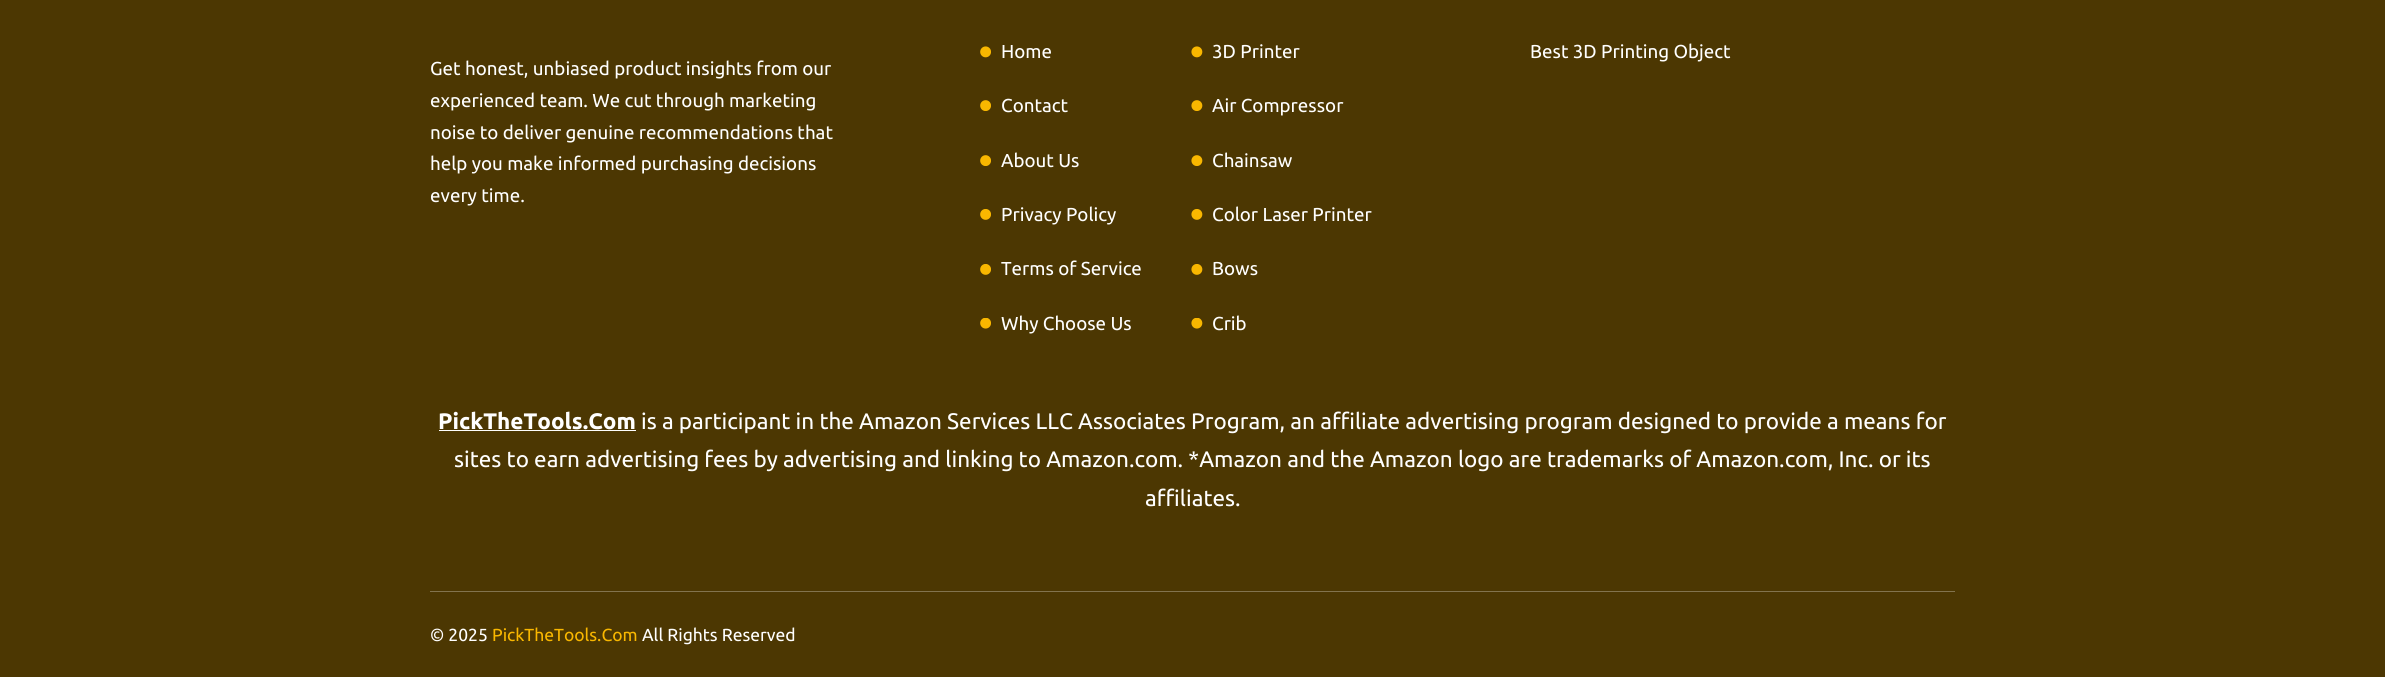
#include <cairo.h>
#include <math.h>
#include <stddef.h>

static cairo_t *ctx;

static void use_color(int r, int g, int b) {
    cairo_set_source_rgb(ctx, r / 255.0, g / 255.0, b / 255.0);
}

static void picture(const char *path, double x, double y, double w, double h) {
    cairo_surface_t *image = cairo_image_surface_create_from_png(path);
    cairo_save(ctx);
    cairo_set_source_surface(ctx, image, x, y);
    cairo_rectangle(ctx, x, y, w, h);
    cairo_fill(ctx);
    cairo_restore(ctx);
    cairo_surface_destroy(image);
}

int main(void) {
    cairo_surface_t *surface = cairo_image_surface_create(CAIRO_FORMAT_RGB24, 2385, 677);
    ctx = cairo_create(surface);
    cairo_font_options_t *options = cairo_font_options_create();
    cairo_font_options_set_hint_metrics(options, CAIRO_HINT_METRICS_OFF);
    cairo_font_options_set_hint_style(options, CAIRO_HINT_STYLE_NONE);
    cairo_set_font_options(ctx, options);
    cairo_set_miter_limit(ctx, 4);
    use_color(76, 55, 2);
    cairo_paint(ctx);
    cairo_select_font_face(ctx, "Ubuntu", CAIRO_FONT_SLANT_NORMAL, CAIRO_FONT_WEIGHT_NORMAL);
    cairo_set_font_size(ctx, 18.75);
    use_color(255, 255, 255);
    cairo_move_to(ctx, 430, 75);
    cairo_show_text(ctx, "Get honest, unbiased product insights from our");
    cairo_move_to(ctx, 430, 107);
    cairo_show_text(ctx, "experienced team. We cut through marketing");
    cairo_move_to(ctx, 430, 139);
    cairo_show_text(ctx, "noise to deliver genuine recommendations that");
    cairo_move_to(ctx, 430, 170);
    cairo_show_text(ctx, "help you make informed purchasing decisions");
    cairo_move_to(ctx, 430, 202);
    cairo_show_text(ctx, "every time.");
    picture("img1.png", 980, 46, 11, 12);
    cairo_move_to(ctx, 1001, 58);
    cairo_show_text(ctx, "Home");
    picture("img2.png", 980, 100, 11, 11);
    cairo_move_to(ctx, 1001, 112);
    cairo_show_text(ctx, "Contact");
    picture("img2.png", 980, 155, 11, 11);
    cairo_move_to(ctx, 1001, 167);
    cairo_show_text(ctx, "About Us");
    picture("img3.png", 980, 209, 11, 11);
    cairo_move_to(ctx, 1001, 221);
    cairo_show_text(ctx, "Privacy Policy");
    picture("img3.png", 980, 264, 11, 11);
    cairo_move_to(ctx, 1001, 275);
    cairo_show_text(ctx, "Terms of Service");
    picture("img4.png", 980, 318, 11, 11);
    cairo_move_to(ctx, 1001, 330);
    cairo_show_text(ctx, "Why Choose Us");
    picture("img5.png", 1191, 46, 12, 12);
    cairo_move_to(ctx, 1212, 58);
    cairo_show_text(ctx, "3D Printer");
    picture("img6.png", 1191, 100, 12, 11);
    cairo_move_to(ctx, 1212, 112);
    cairo_show_text(ctx, "Air Compressor");
    picture("img6.png", 1191, 155, 12, 11);
    cairo_move_to(ctx, 1212, 167);
    cairo_show_text(ctx, "Chainsaw");
    picture("img7.png", 1191, 209, 12, 11);
    cairo_move_to(ctx, 1212, 221);
    cairo_show_text(ctx, "Color Laser Printer");
    picture("img7.png", 1191, 264, 12, 11);
    cairo_move_to(ctx, 1212, 275);
    cairo_show_text(ctx, "Bows");
    picture("img8.png", 1191, 318, 12, 11);
    cairo_move_to(ctx, 1212, 330);
    cairo_show_text(ctx, "Crib");
    cairo_move_to(ctx, 1530, 58);
    cairo_show_text(ctx, "Best 3D Printing Object");
    cairo_select_font_face(ctx, "Ubuntu", CAIRO_FONT_SLANT_NORMAL, CAIRO_FONT_WEIGHT_BOLD);
    cairo_set_font_size(ctx, 22.5);
    cairo_move_to(ctx, 438, 429);
    cairo_show_text(ctx, "PickTheTools.Com");
    cairo_rectangle(ctx, 439, 430, 197, 1);
    cairo_fill(ctx);
    cairo_select_font_face(ctx, "Ubuntu", CAIRO_FONT_SLANT_NORMAL, CAIRO_FONT_WEIGHT_NORMAL);
    cairo_move_to(ctx, 641, 429);
    cairo_show_text(ctx, "is a participant in the Amazon Services LLC Associates Program, an affiliate advertising program designed to provide a means for");
    cairo_move_to(ctx, 454, 467);
    cairo_show_text(ctx, "sites to earn advertising fees by advertising and linking to Amazon.com. *Amazon and the Amazon logo are trademarks of Amazon.com, Inc. or its");
    cairo_move_to(ctx, 1145, 506);
    cairo_show_text(ctx, "affiliates.");
    use_color(130, 115, 78);
    cairo_rectangle(ctx, 430, 591, 1525, 1);
    cairo_fill(ctx);
    cairo_set_font_size(ctx, 17.5);
    use_color(255, 255, 255);
    cairo_move_to(ctx, 430, 641);
    cairo_show_text(ctx, "© 2025");
    use_color(249, 183, 0);
    cairo_move_to(ctx, 492, 641);
    cairo_show_text(ctx, "PickTheTools.Com");
    use_color(255, 255, 255);
    cairo_move_to(ctx, 642, 641);
    cairo_show_text(ctx, "All Rights Reserved");
    cairo_surface_write_to_png(surface, "result.png");
    cairo_font_options_destroy(options);
    cairo_destroy(ctx);
    cairo_surface_destroy(surface);
    return 0;
}
